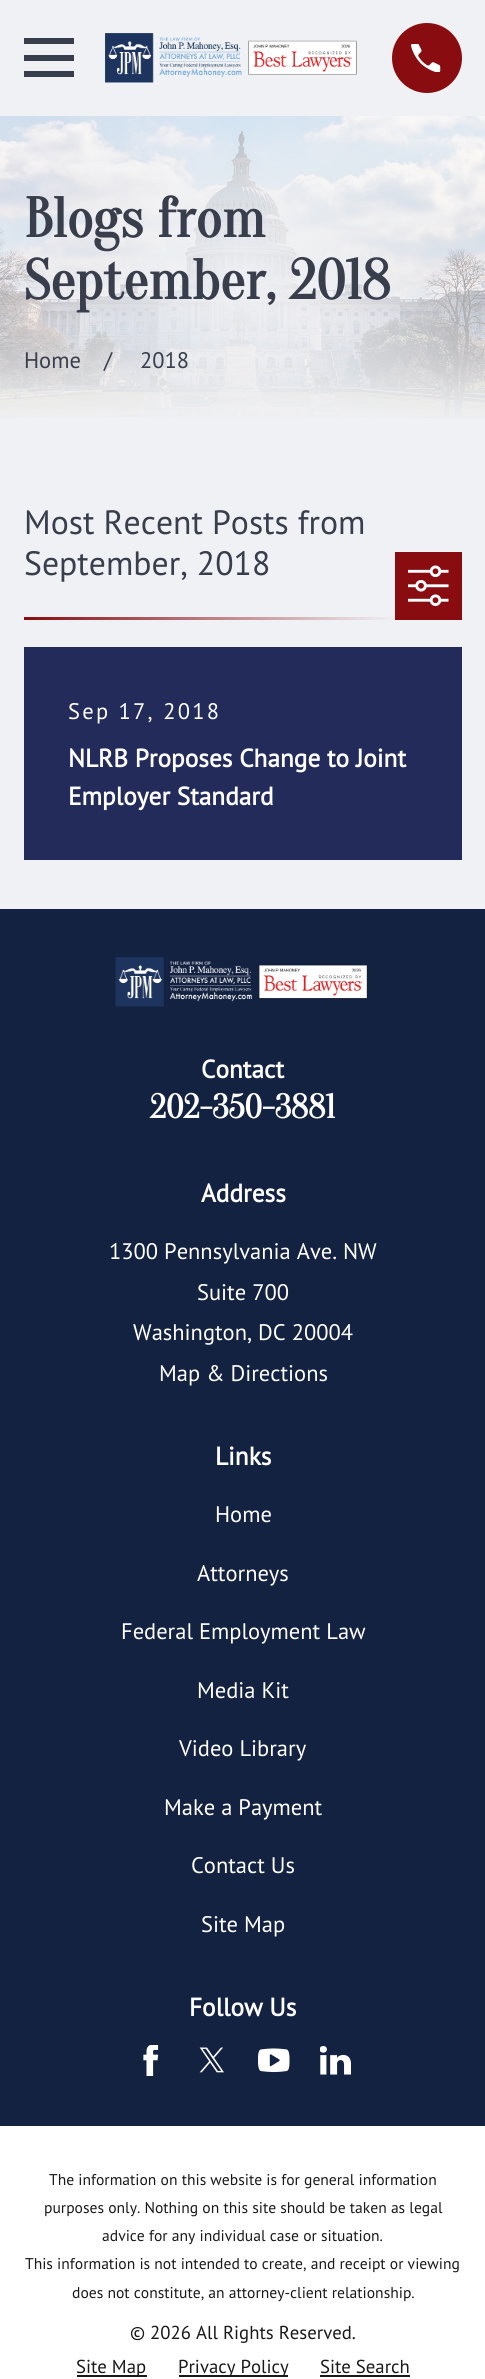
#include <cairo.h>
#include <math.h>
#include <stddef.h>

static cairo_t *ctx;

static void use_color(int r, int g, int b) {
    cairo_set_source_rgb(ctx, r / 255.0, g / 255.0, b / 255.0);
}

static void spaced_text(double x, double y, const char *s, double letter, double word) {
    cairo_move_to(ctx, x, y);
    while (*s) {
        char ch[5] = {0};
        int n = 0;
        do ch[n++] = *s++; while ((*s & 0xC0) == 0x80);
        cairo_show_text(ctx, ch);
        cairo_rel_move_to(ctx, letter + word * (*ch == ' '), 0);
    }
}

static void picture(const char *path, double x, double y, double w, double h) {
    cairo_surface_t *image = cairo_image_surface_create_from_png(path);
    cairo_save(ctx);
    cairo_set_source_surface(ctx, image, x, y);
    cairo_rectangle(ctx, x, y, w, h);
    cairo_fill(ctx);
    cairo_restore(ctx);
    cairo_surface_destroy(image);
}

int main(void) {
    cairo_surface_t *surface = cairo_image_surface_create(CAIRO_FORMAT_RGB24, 485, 2379);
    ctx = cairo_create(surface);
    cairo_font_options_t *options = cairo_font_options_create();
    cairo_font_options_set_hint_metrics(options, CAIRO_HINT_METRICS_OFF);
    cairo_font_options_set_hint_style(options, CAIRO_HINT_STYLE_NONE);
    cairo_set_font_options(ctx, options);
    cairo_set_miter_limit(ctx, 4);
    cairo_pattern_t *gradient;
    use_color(255, 255, 255);
    cairo_paint(ctx);
    use_color(240, 241, 244);
    cairo_rectangle(ctx, 0, 0, 485, 116);
    cairo_fill(ctx);
    use_color(57, 62, 77);
    cairo_new_path(ctx);
    cairo_move_to(ctx, 24, 38);
    cairo_line_to(ctx, 24, 44);
    cairo_line_to(ctx, 74, 44);
    cairo_line_to(ctx, 74, 38);
    cairo_close_path(ctx);
    cairo_move_to(ctx, 24, 55);
    cairo_line_to(ctx, 24, 61);
    cairo_line_to(ctx, 74, 61);
    cairo_line_to(ctx, 74, 55);
    cairo_close_path(ctx);
    cairo_move_to(ctx, 24, 71);
    cairo_line_to(ctx, 24, 77);
    cairo_line_to(ctx, 74, 77);
    cairo_line_to(ctx, 74, 71);
    cairo_close_path(ctx);
    cairo_fill(ctx);
    picture("img1.png", 105, 33, 252, 50);
    use_color(136, 12, 16);
    cairo_arc(ctx, 427, 58, 35, 0, 2 * M_PI);
    cairo_fill(ctx);
    picture("img2.png", 411, 44, 30, 28);
    picture("img3.png", 0, 116, 485, 302);
    cairo_select_font_face(ctx, "Oranienbaum", CAIRO_FONT_SLANT_NORMAL, CAIRO_FONT_WEIGHT_BOLD);
    cairo_set_font_size(ctx, 56.25);
    use_color(57, 62, 77);
    cairo_move_to(ctx, 24, 237);
    cairo_show_text(ctx, "Blogs from");
    cairo_move_to(ctx, 24, 299);
    cairo_show_text(ctx, "September, 2018");
    cairo_select_font_face(ctx, "PT Sans", CAIRO_FONT_SLANT_NORMAL, CAIRO_FONT_WEIGHT_NORMAL);
    cairo_set_font_size(ctx, 22.5);
    cairo_move_to(ctx, 24, 368);
    cairo_show_text(ctx, "Home");
    cairo_move_to(ctx, 104, 368);
    cairo_show_text(ctx, "/");
    cairo_move_to(ctx, 140, 368);
    cairo_show_text(ctx, "2018");
    use_color(240, 241, 244);
    cairo_rectangle(ctx, 0, 418, 485, 491);
    cairo_fill(ctx);
    cairo_set_font_size(ctx, 33.75);
    use_color(57, 62, 77);
    cairo_move_to(ctx, 24, 534);
    cairo_show_text(ctx, "Most Recent Posts from");
    cairo_move_to(ctx, 24, 575);
    cairo_show_text(ctx, "September, 2018");
    gradient = cairo_pattern_create_linear(24, 618, 395, 618);
    cairo_pattern_add_color_stop_rgba(gradient, 0, 0.533, 0.047, 0.063, 1);
    cairo_pattern_add_color_stop_rgba(gradient, 1, 0.941, 0.945, 0.957, 1);
    cairo_set_source(ctx, gradient);
    cairo_pattern_destroy(gradient);
    cairo_rectangle(ctx, 24, 617, 371, 3);
    cairo_fill(ctx);
    use_color(136, 12, 16);
    cairo_rectangle(ctx, 395, 552, 67, 68);
    cairo_fill(ctx);
    picture("img4.png", 408, 565, 41, 41);
    use_color(35, 43, 91);
    cairo_rectangle(ctx, 24, 647, 438, 213);
    cairo_fill(ctx);
    cairo_set_font_size(ctx, 22.5);
    use_color(255, 255, 255);
    spaced_text(68, 719, "Sep 17, 2018", 2.25, 0);
    cairo_select_font_face(ctx, "PT Sans", CAIRO_FONT_SLANT_NORMAL, CAIRO_FONT_WEIGHT_BOLD);
    cairo_set_font_size(ctx, 25.3);
    cairo_move_to(ctx, 68, 767);
    cairo_show_text(ctx, "NLRB Proposes Change to Joint");
    cairo_move_to(ctx, 68, 805);
    cairo_show_text(ctx, "Employer Standard");
    use_color(20, 34, 65);
    cairo_rectangle(ctx, 0, 909, 485, 1217);
    cairo_fill(ctx);
    picture("img5.png", 115, 957, 253, 50);
    use_color(255, 255, 255);
    cairo_move_to(ctx, 201, 1078);
    cairo_show_text(ctx, "Contact");
    cairo_select_font_face(ctx, "Oranienbaum", CAIRO_FONT_SLANT_NORMAL, CAIRO_FONT_WEIGHT_BOLD);
    cairo_set_font_size(ctx, 33.75);
    cairo_move_to(ctx, 150, 1118);
    cairo_show_text(ctx, "202-350-3881");
    cairo_select_font_face(ctx, "PT Sans", CAIRO_FONT_SLANT_NORMAL, CAIRO_FONT_WEIGHT_BOLD);
    cairo_set_font_size(ctx, 25.3);
    cairo_move_to(ctx, 201, 1202);
    cairo_show_text(ctx, "Address");
    cairo_select_font_face(ctx, "PT Sans", CAIRO_FONT_SLANT_NORMAL, CAIRO_FONT_WEIGHT_NORMAL);
    cairo_set_font_size(ctx, 22.5);
    cairo_move_to(ctx, 109, 1259);
    cairo_show_text(ctx, "1300 Pennsylvania Ave. NW");
    cairo_move_to(ctx, 197, 1300);
    cairo_show_text(ctx, "Suite 700");
    cairo_move_to(ctx, 133, 1340);
    cairo_show_text(ctx, "Washington, DC 20004");
    cairo_move_to(ctx, 159, 1381);
    cairo_show_text(ctx, "Map & Directions");
    cairo_select_font_face(ctx, "PT Sans", CAIRO_FONT_SLANT_NORMAL, CAIRO_FONT_WEIGHT_BOLD);
    cairo_set_font_size(ctx, 25.3);
    cairo_move_to(ctx, 215, 1465);
    cairo_show_text(ctx, "Links");
    cairo_select_font_face(ctx, "PT Sans", CAIRO_FONT_SLANT_NORMAL, CAIRO_FONT_WEIGHT_NORMAL);
    cairo_set_font_size(ctx, 22.5);
    cairo_move_to(ctx, 215, 1522);
    cairo_show_text(ctx, "Home");
    cairo_move_to(ctx, 197, 1581);
    cairo_show_text(ctx, "Attorneys");
    cairo_move_to(ctx, 121, 1639);
    cairo_show_text(ctx, "Federal Employment Law");
    cairo_move_to(ctx, 197, 1698);
    cairo_show_text(ctx, "Media Kit");
    cairo_move_to(ctx, 179, 1756);
    cairo_show_text(ctx, "Video Library");
    cairo_move_to(ctx, 164, 1815);
    cairo_show_text(ctx, "Make a Payment");
    cairo_move_to(ctx, 191, 1873);
    cairo_show_text(ctx, "Contact Us");
    cairo_move_to(ctx, 201, 1932);
    cairo_show_text(ctx, "Site Map");
    cairo_select_font_face(ctx, "PT Sans", CAIRO_FONT_SLANT_NORMAL, CAIRO_FONT_WEIGHT_BOLD);
    cairo_set_font_size(ctx, 25.3);
    cairo_move_to(ctx, 189, 2016);
    cairo_show_text(ctx, "Follow Us");
    picture("img6.png", 143, 2045, 16, 31);
    picture("img7.png", 199, 2047, 25, 26);
    picture("img8.png", 258, 2048, 32, 25);
    picture("img9.png", 320, 2046, 31, 29);
    cairo_select_font_face(ctx, "PT Sans", CAIRO_FONT_SLANT_NORMAL, CAIRO_FONT_WEIGHT_NORMAL);
    cairo_set_font_size(ctx, 15.6);
    use_color(25, 25, 25);
    cairo_move_to(ctx, 49, 2185);
    cairo_show_text(ctx, "The information on this website is for general information");
    cairo_move_to(ctx, 44, 2213);
    cairo_show_text(ctx, "purposes only. Nothing on this site should be taken as legal");
    cairo_move_to(ctx, 102, 2241);
    cairo_show_text(ctx, "advice for any individual case or situation.");
    cairo_move_to(ctx, 25, 2269);
    cairo_show_text(ctx, "This information is not intended to create, and receipt or viewing");
    cairo_move_to(ctx, 72, 2298);
    cairo_show_text(ctx, "does not constitute, an attorney-client relationship.");
    cairo_set_font_size(ctx, 18.75);
    cairo_move_to(ctx, 130, 2339);
    cairo_show_text(ctx, "© 2026 All Rights Reserved.");
    cairo_rectangle(ctx, 77, 2375, 70, 2);
    cairo_fill(ctx);
    cairo_move_to(ctx, 76, 2373);
    cairo_show_text(ctx, "Site Map");
    cairo_rectangle(ctx, 179, 2375, 109, 2);
    cairo_fill(ctx);
    cairo_move_to(ctx, 178, 2373);
    cairo_show_text(ctx, "Privacy Policy");
    cairo_move_to(ctx, 320, 2373);
    cairo_show_text(ctx, "Site Search");
    cairo_rectangle(ctx, 320, 2375, 90, 2);
    cairo_fill(ctx);
    cairo_surface_write_to_png(surface, "result.png");
    cairo_font_options_destroy(options);
    cairo_destroy(ctx);
    cairo_surface_destroy(surface);
    return 0;
}
